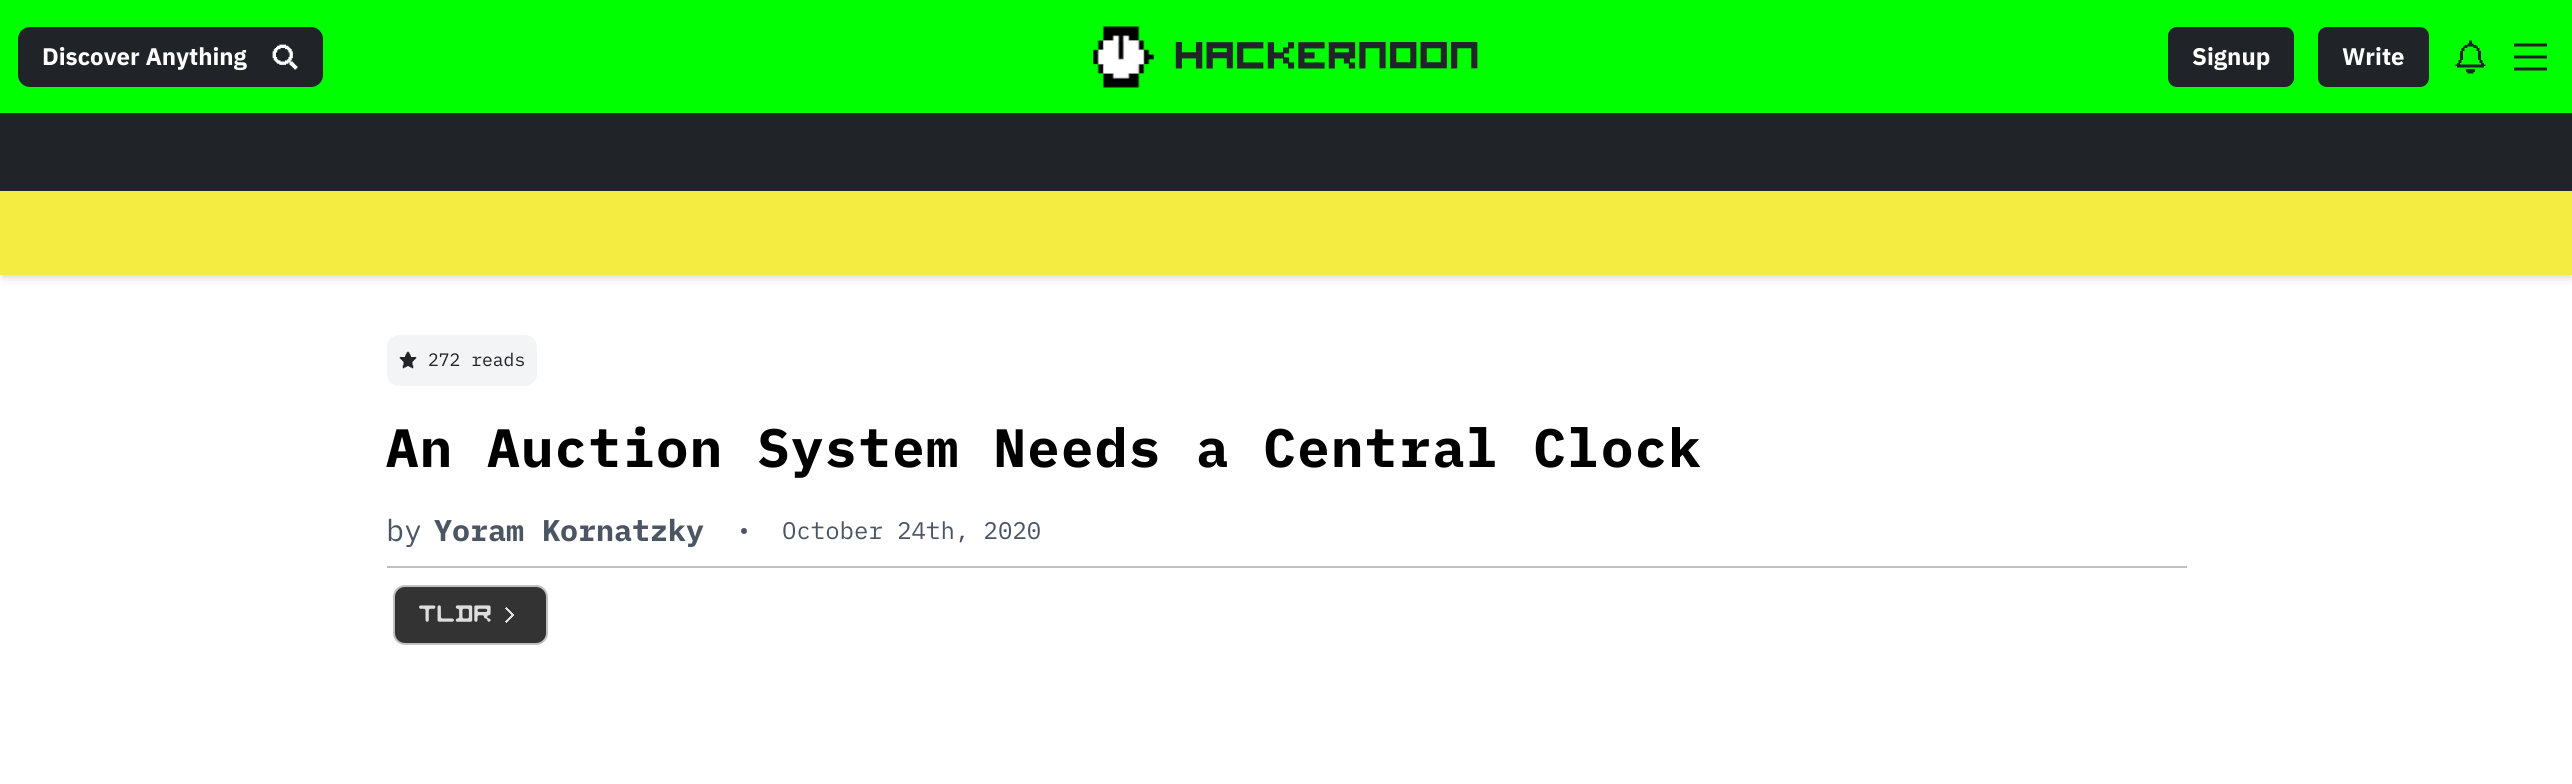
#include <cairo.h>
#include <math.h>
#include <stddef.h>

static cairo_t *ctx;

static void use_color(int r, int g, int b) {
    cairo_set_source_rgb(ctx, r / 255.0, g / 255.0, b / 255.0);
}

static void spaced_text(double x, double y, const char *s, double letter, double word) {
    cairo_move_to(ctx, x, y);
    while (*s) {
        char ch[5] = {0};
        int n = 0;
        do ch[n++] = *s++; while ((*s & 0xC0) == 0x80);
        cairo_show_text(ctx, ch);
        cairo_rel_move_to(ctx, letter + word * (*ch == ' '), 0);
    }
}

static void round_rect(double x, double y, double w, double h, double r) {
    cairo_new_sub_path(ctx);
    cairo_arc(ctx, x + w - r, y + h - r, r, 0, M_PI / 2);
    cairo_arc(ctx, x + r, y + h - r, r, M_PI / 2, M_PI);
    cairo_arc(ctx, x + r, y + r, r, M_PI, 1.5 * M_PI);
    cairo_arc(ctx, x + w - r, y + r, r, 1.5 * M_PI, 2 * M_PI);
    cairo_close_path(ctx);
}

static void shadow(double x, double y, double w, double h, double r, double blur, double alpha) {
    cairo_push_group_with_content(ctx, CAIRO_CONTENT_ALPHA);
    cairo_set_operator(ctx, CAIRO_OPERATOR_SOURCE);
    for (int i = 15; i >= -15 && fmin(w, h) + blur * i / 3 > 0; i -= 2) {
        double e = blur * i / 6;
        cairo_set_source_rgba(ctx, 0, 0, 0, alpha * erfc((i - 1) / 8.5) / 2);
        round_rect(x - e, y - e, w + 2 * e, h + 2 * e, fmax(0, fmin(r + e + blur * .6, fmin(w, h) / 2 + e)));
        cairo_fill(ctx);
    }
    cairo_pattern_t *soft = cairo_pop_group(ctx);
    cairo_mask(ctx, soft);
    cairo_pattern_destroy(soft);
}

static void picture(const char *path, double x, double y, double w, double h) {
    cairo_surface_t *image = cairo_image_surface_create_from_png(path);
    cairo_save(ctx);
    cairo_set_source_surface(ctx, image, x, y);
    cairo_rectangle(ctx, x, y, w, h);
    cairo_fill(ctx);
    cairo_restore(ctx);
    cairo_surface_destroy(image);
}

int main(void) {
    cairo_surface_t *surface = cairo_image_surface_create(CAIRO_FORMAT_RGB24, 2572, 784);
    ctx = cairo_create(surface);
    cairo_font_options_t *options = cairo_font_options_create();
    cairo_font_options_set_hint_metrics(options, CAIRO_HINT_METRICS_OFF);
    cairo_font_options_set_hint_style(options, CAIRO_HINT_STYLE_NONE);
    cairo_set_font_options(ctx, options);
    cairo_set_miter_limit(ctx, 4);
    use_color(255, 255, 255);
    cairo_paint(ctx);
    use_color(0, 255, 0);
    cairo_rectangle(ctx, 0, 0, 2572, 113);
    cairo_fill(ctx);
    use_color(32, 35, 39);
    round_rect(18, 27, 305, 60, 12);
    cairo_fill(ctx);
    cairo_select_font_face(ctx, "IBM Plex Sans", CAIRO_FONT_SLANT_NORMAL, CAIRO_FONT_WEIGHT_BOLD);
    cairo_set_font_size(ctx, 24);
    use_color(255, 255, 255);
    cairo_move_to(ctx, 42, 65);
    cairo_show_text(ctx, "Discover Anything");
    picture("img1.png", 272, 44, 26, 26);
    picture("img2.png", 1093, 26, 62, 62);
    cairo_select_font_face(ctx, "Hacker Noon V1", CAIRO_FONT_SLANT_NORMAL, CAIRO_FONT_WEIGHT_BOLD);
    cairo_set_font_size(ctx, 36);
    use_color(33, 36, 40);
    spaced_text(1174, 65, "Hackernoon", 1.75, 0);
    use_color(32, 35, 39);
    round_rect(2168, 27, 126, 60, 9);
    cairo_fill(ctx);
    cairo_select_font_face(ctx, "IBM Plex Sans", CAIRO_FONT_SLANT_NORMAL, CAIRO_FONT_WEIGHT_BOLD);
    cairo_set_font_size(ctx, 24);
    use_color(255, 255, 255);
    cairo_move_to(ctx, 2192, 65);
    cairo_show_text(ctx, "Signup");
    use_color(32, 35, 39);
    round_rect(2318, 27, 111, 60, 9);
    cairo_fill(ctx);
    use_color(255, 255, 255);
    cairo_move_to(ctx, 2342, 65);
    cairo_show_text(ctx, "Write");
    picture("img3.png", 2455, 40, 31, 34);
    use_color(32, 35, 39);
    cairo_new_path(ctx);
    cairo_move_to(ctx, 2514, 55.5);
    cairo_line_to(ctx, 2547, 55.5);
    cairo_line_to(ctx, 2547, 58.5);
    cairo_line_to(ctx, 2514, 58.5);
    cairo_close_path(ctx);
    cairo_move_to(ctx, 2514, 67.5);
    cairo_line_to(ctx, 2547, 67.5);
    cairo_line_to(ctx, 2547, 70.5);
    cairo_line_to(ctx, 2514, 70.5);
    cairo_close_path(ctx);
    cairo_move_to(ctx, 2514, 43.5);
    cairo_line_to(ctx, 2547, 43.5);
    cairo_line_to(ctx, 2547, 46.5);
    cairo_line_to(ctx, 2514, 46.5);
    cairo_close_path(ctx);
    cairo_fill(ctx);
    cairo_rectangle(ctx, 0, 113, 2572, 78);
    cairo_fill(ctx);
    use_color(0, 0, 0);
    shadow(3, 197, 2567, 78, 0, 3, 0.1);
    shadow(2, 198, 2569, 81, 0, 4.5, 0.1);
    use_color(245, 236, 66);
    cairo_rectangle(ctx, 0, 191, 2572, 84);
    cairo_fill(ctx);
    use_color(243, 244, 246);
    round_rect(387, 335, 150, 51, 12);
    cairo_fill(ctx);
    picture("img4.png", 399, 351, 18, 18);
    cairo_select_font_face(ctx, "IBM Plex Mono", CAIRO_FONT_SLANT_NORMAL, CAIRO_FONT_WEIGHT_NORMAL);
    cairo_set_font_size(ctx, 18);
    use_color(33, 36, 40);
    cairo_move_to(ctx, 428, 366);
    cairo_show_text(ctx, "272 reads");
    cairo_select_font_face(ctx, "IBM Plex Mono", CAIRO_FONT_SLANT_NORMAL, CAIRO_FONT_WEIGHT_BOLD);
    cairo_set_font_size(ctx, 54);
    use_color(0, 0, 0);
    spaced_text(386, 467, "An Auction System Needs a Central Clock", 1.35, 0);
    use_color(192, 192, 192);
    cairo_rectangle(ctx, 387, 566, 1800, 2);
    cairo_fill(ctx);
    cairo_select_font_face(ctx, "IBM Plex Mono", CAIRO_FONT_SLANT_NORMAL, CAIRO_FONT_WEIGHT_NORMAL);
    cairo_set_font_size(ctx, 30);
    use_color(75, 85, 99);
    cairo_move_to(ctx, 386, 541);
    cairo_show_text(ctx, "by");
    cairo_select_font_face(ctx, "IBM Plex Mono", CAIRO_FONT_SLANT_NORMAL, CAIRO_FONT_WEIGHT_BOLD);
    cairo_move_to(ctx, 434, 541);
    cairo_show_text(ctx, "Yoram Kornatzky");
    cairo_new_path(ctx);
    cairo_arc(ctx, 744, 531, 3, 0, 2 * M_PI);
    cairo_fill(ctx);
    cairo_select_font_face(ctx, "IBM Plex Mono", CAIRO_FONT_SLANT_NORMAL, CAIRO_FONT_WEIGHT_NORMAL);
    cairo_set_font_size(ctx, 24);
    cairo_move_to(ctx, 782, 539);
    cairo_show_text(ctx, "October 24th, 2020");
    use_color(51, 51, 51);
    round_rect(394, 586, 153, 58, 11);
    cairo_fill_preserve(ctx);
    use_color(192, 192, 192);
    cairo_stroke(ctx);
    cairo_select_font_face(ctx, "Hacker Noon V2", CAIRO_FONT_SLANT_NORMAL, CAIRO_FONT_WEIGHT_NORMAL);
    cairo_set_font_size(ctx, 21);
    use_color(221, 221, 221);
    cairo_move_to(ctx, 418, 620);
    cairo_show_text(ctx, "TLDR");
    picture("img5.png", 505, 607, 9, 16);
    cairo_surface_write_to_png(surface, "result.png");
    cairo_font_options_destroy(options);
    cairo_destroy(ctx);
    cairo_surface_destroy(surface);
    return 0;
}
